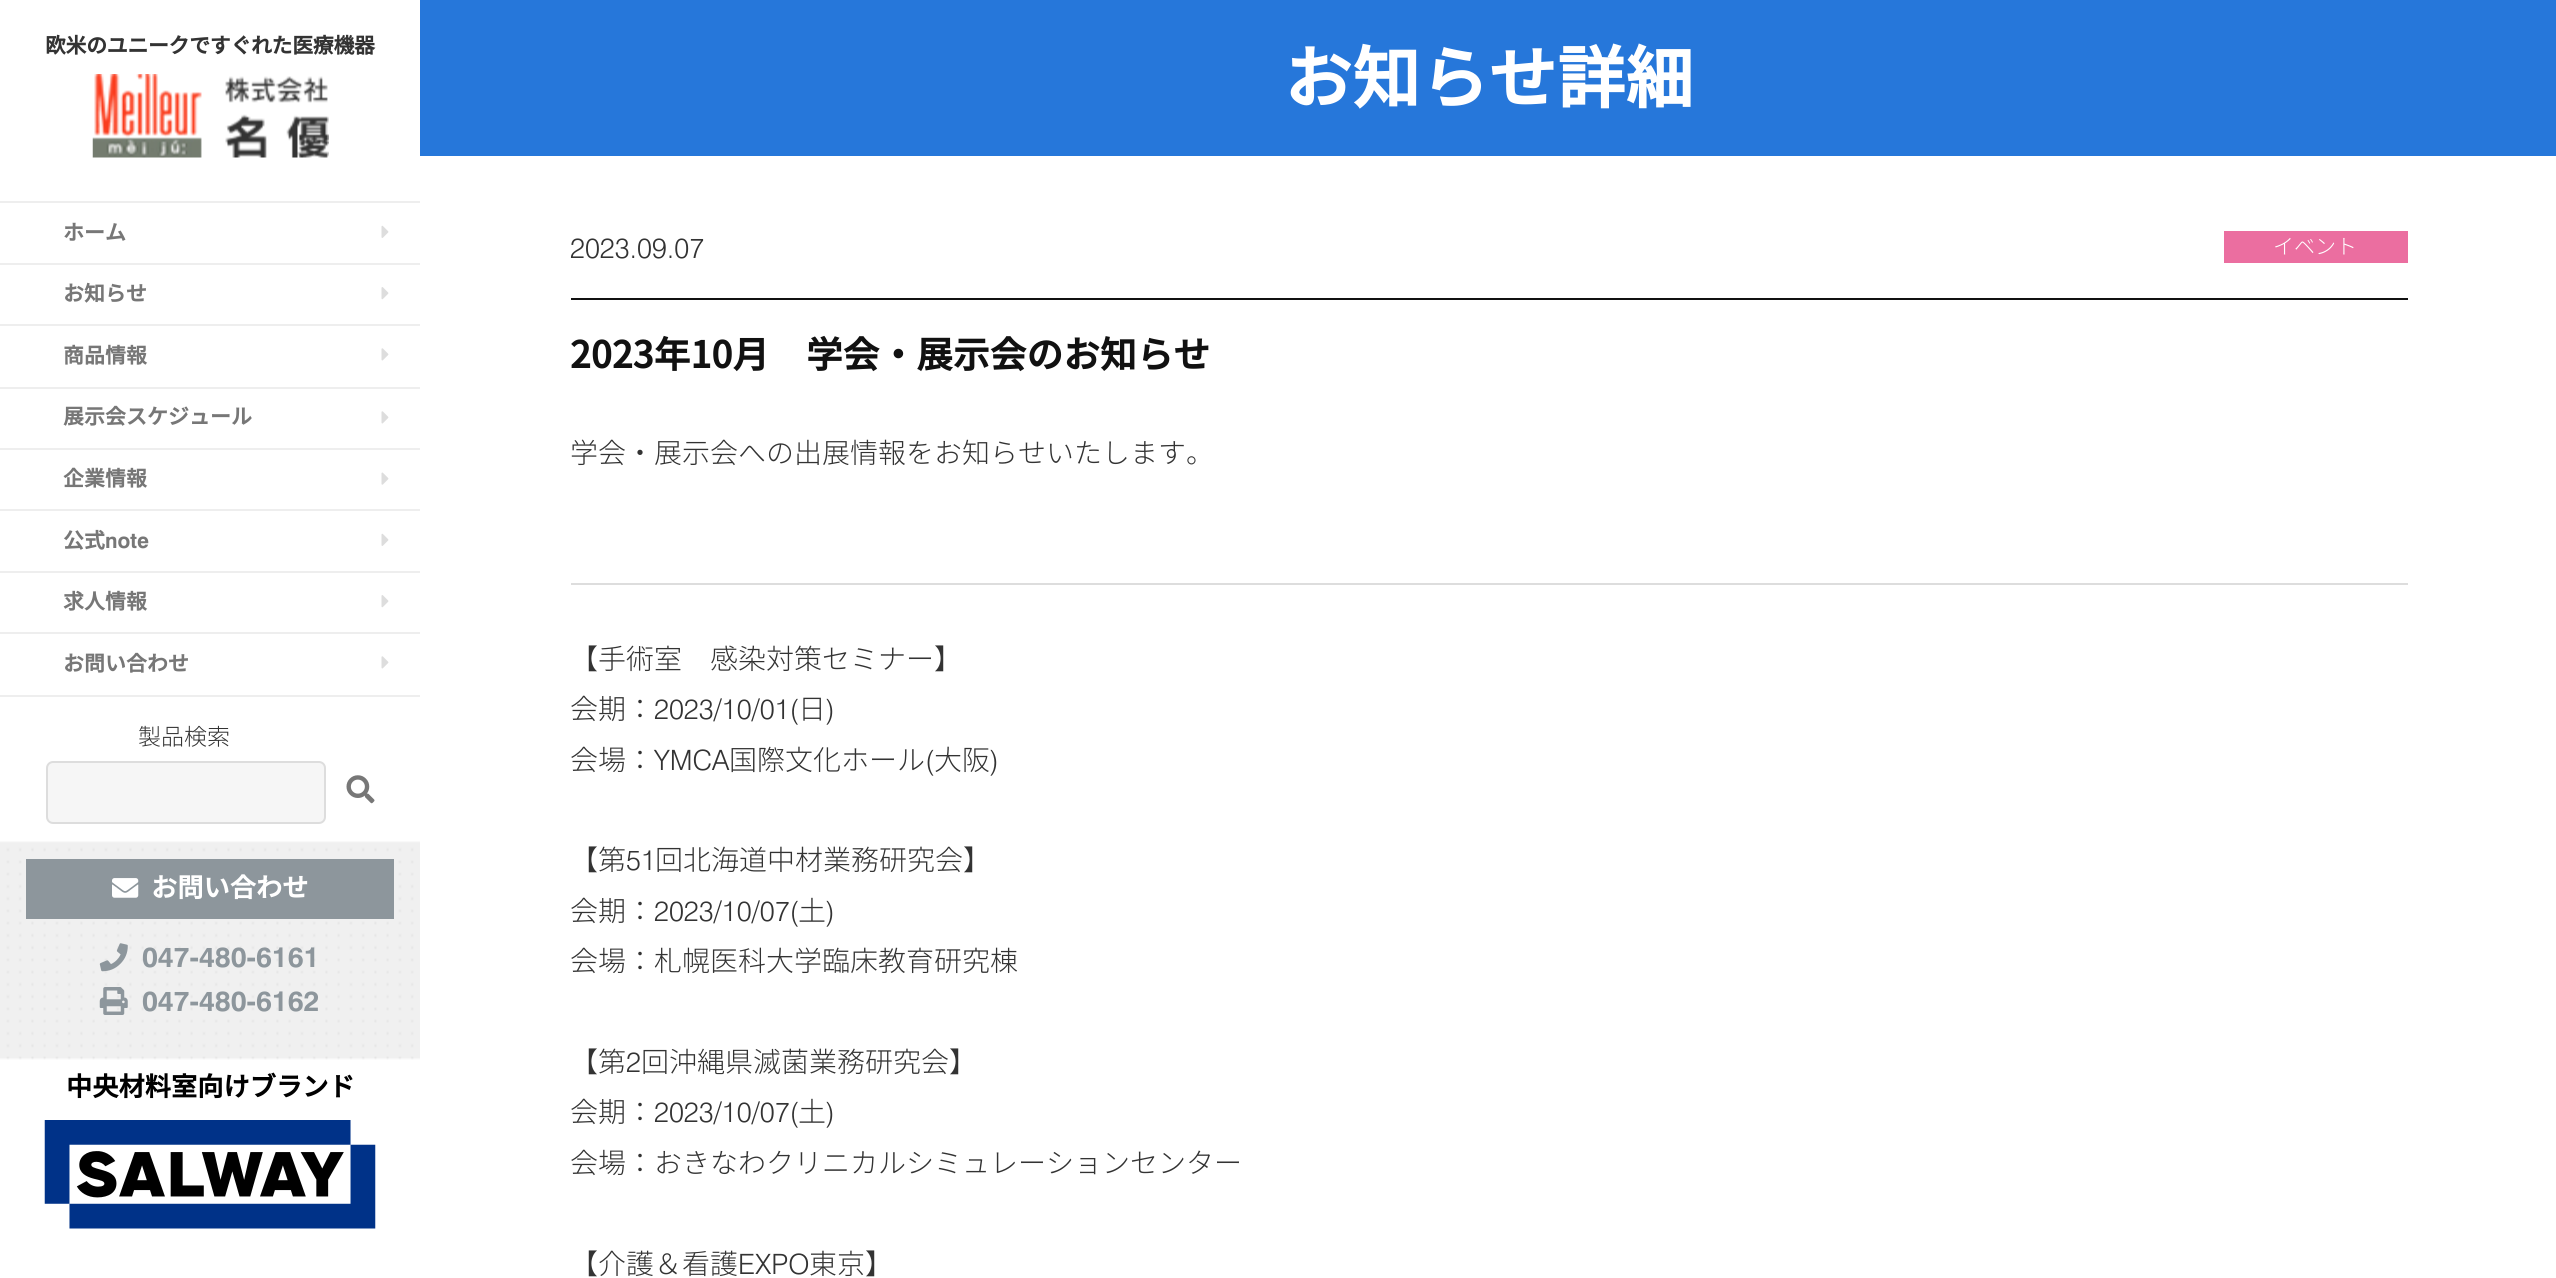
#include <cairo.h>
#include <math.h>
#include <stddef.h>

static cairo_t *ctx;

static void use_color(int r, int g, int b) {
    cairo_set_source_rgb(ctx, r / 255.0, g / 255.0, b / 255.0);
}

static void spaced_text(double x, double y, const char *s, double letter, double word) {
    cairo_move_to(ctx, x, y);
    while (*s) {
        char ch[5] = {0};
        int n = 0;
        do ch[n++] = *s++; while ((*s & 0xC0) == 0x80);
        cairo_show_text(ctx, ch);
        cairo_rel_move_to(ctx, letter + word * (*ch == ' '), 0);
    }
}

static void round_rect(double x, double y, double w, double h, double r) {
    cairo_new_sub_path(ctx);
    cairo_arc(ctx, x + w - r, y + h - r, r, 0, M_PI / 2);
    cairo_arc(ctx, x + r, y + h - r, r, M_PI / 2, M_PI);
    cairo_arc(ctx, x + r, y + r, r, M_PI, 1.5 * M_PI);
    cairo_arc(ctx, x + w - r, y + r, r, 1.5 * M_PI, 2 * M_PI);
    cairo_close_path(ctx);
}

static void picture(const char *path, double x, double y, double w, double h) {
    cairo_surface_t *image = cairo_image_surface_create_from_png(path);
    cairo_save(ctx);
    cairo_set_source_surface(ctx, image, x, y);
    cairo_rectangle(ctx, x, y, w, h);
    cairo_fill(ctx);
    cairo_restore(ctx);
    cairo_surface_destroy(image);
}

int main(void) {
    cairo_surface_t *surface = cairo_image_surface_create(CAIRO_FORMAT_RGB24, 2556, 1278);
    ctx = cairo_create(surface);
    cairo_font_options_t *options = cairo_font_options_create();
    cairo_font_options_set_hint_metrics(options, CAIRO_HINT_METRICS_OFF);
    cairo_font_options_set_hint_style(options, CAIRO_HINT_STYLE_NONE);
    cairo_set_font_options(ctx, options);
    cairo_set_miter_limit(ctx, 4);
    use_color(255, 255, 255);
    cairo_paint(ctx);
    cairo_select_font_face(ctx, "Noto Sans JP", CAIRO_FONT_SLANT_NORMAL, CAIRO_FONT_WEIGHT_BOLD);
    cairo_set_font_size(ctx, 21);
    use_color(51, 51, 51);
    spaced_text(45, 53, "欧米のユニークですぐれた医療機器", -0.4, 0);
    picture("img1.png", 92, 74, 237, 84);
    use_color(238, 238, 238);
    cairo_rectangle(ctx, 0, 201, 420, 2);
    cairo_fill(ctx);
    cairo_rectangle(ctx, 0, 263, 420, 2);
    cairo_fill(ctx);
    use_color(119, 119, 119);
    cairo_move_to(ctx, 63, 240);
    cairo_show_text(ctx, "ホーム");
    picture("img2.png", 381, 225, 8, 13);
    use_color(238, 238, 238);
    cairo_rectangle(ctx, 0, 324, 420, 2);
    cairo_fill(ctx);
    use_color(119, 119, 119);
    cairo_move_to(ctx, 63, 301);
    cairo_show_text(ctx, "お知らせ");
    picture("img3.png", 381, 287, 8, 13);
    use_color(238, 238, 238);
    cairo_rectangle(ctx, 0, 387, 420, 2);
    cairo_fill(ctx);
    use_color(119, 119, 119);
    cairo_move_to(ctx, 63, 363);
    cairo_show_text(ctx, "商品情報");
    picture("img4.png", 381, 348, 8, 13);
    use_color(238, 238, 238);
    cairo_rectangle(ctx, 0, 448, 420, 2);
    cairo_fill(ctx);
    use_color(119, 119, 119);
    cairo_move_to(ctx, 63, 424);
    cairo_show_text(ctx, "展示会スケジュール");
    picture("img4.png", 381, 411, 8, 13);
    use_color(238, 238, 238);
    cairo_rectangle(ctx, 0, 509, 420, 2);
    cairo_fill(ctx);
    use_color(119, 119, 119);
    cairo_move_to(ctx, 63, 486);
    cairo_show_text(ctx, "企業情報");
    picture("img5.png", 381, 472, 8, 13);
    use_color(238, 238, 238);
    cairo_rectangle(ctx, 0, 571, 420, 2);
    cairo_fill(ctx);
    use_color(119, 119, 119);
    cairo_move_to(ctx, 63, 548);
    cairo_show_text(ctx, "公式");
    cairo_select_font_face(ctx, "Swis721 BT", CAIRO_FONT_SLANT_NORMAL, CAIRO_FONT_WEIGHT_BOLD);
    cairo_move_to(ctx, 105, 548);
    cairo_show_text(ctx, "note");
    picture("img2.png", 381, 533, 8, 13);
    use_color(238, 238, 238);
    cairo_rectangle(ctx, 0, 632, 420, 2);
    cairo_fill(ctx);
    cairo_select_font_face(ctx, "Noto Sans JP", CAIRO_FONT_SLANT_NORMAL, CAIRO_FONT_WEIGHT_BOLD);
    use_color(119, 119, 119);
    cairo_move_to(ctx, 63, 609);
    cairo_show_text(ctx, "求人情報");
    picture("img3.png", 381, 595, 8, 13);
    use_color(238, 238, 238);
    cairo_rectangle(ctx, 0, 695, 420, 2);
    cairo_fill(ctx);
    use_color(119, 119, 119);
    cairo_move_to(ctx, 63, 671);
    cairo_show_text(ctx, "お問い合わせ");
    picture("img4.png", 381, 656, 8, 13);
    cairo_select_font_face(ctx, "Noto Sans JP Light", CAIRO_FONT_SLANT_NORMAL, CAIRO_FONT_WEIGHT_NORMAL);
    cairo_set_font_size(ctx, 23);
    use_color(51, 51, 51);
    cairo_move_to(ctx, 138, 745);
    cairo_show_text(ctx, "製品検索");
    use_color(246, 246, 246);
    round_rect(47, 762, 278, 61, 6);
    cairo_fill_preserve(ctx);
    use_color(221, 221, 221);
    cairo_stroke(ctx);
    picture("img6.png", 346, 775, 29, 29);
    picture("img7.png", 0, 841, 420, 219);
    use_color(141, 150, 156);
    cairo_rectangle(ctx, 26, 859, 368, 60);
    cairo_fill(ctx);
    picture("img8.png", 112, 878, 27, 20);
    cairo_select_font_face(ctx, "Noto Sans JP", CAIRO_FONT_SLANT_NORMAL, CAIRO_FONT_WEIGHT_BOLD);
    cairo_set_font_size(ctx, 26.25);
    use_color(255, 255, 255);
    cairo_move_to(ctx, 151, 897);
    cairo_show_text(ctx, "お問い合わせ");
    picture("img9.png", 99, 943, 29, 29);
    cairo_select_font_face(ctx, "Swis721 BT", CAIRO_FONT_SLANT_NORMAL, CAIRO_FONT_WEIGHT_BOLD);
    cairo_set_font_size(ctx, 28);
    use_color(141, 150, 156);
    cairo_move_to(ctx, 142, 967);
    cairo_show_text(ctx, "047-480-6161");
    picture("img10.png", 99, 987, 29, 28);
    cairo_move_to(ctx, 142, 1011);
    cairo_show_text(ctx, "047-480-6162");
    cairo_select_font_face(ctx, "Noto Sans JP", CAIRO_FONT_SLANT_NORMAL, CAIRO_FONT_WEIGHT_BOLD);
    cairo_set_font_size(ctx, 26.25);
    use_color(0, 0, 0);
    cairo_move_to(ctx, 66, 1096);
    cairo_show_text(ctx, "中央材料室向けブランド");
    picture("img11.png", 44, 1120, 332, 109);
    use_color(38, 119, 218);
    cairo_rectangle(ctx, 420, 0, 2136, 156);
    cairo_fill(ctx);
    cairo_set_font_size(ctx, 68.25);
    use_color(255, 255, 255);
    cairo_move_to(ctx, 1284, 103);
    cairo_show_text(ctx, "お知らせ詳細");
    cairo_select_font_face(ctx, "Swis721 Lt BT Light", CAIRO_FONT_SLANT_NORMAL, CAIRO_FONT_WEIGHT_NORMAL);
    cairo_set_font_size(ctx, 28);
    use_color(51, 51, 51);
    cairo_move_to(ctx, 570, 258);
    cairo_show_text(ctx, "2023.09.07");
    use_color(235, 110, 160);
    cairo_rectangle(ctx, 2224, 231, 184, 32);
    cairo_fill(ctx);
    cairo_select_font_face(ctx, "Noto Sans JP Light", CAIRO_FONT_SLANT_NORMAL, CAIRO_FONT_WEIGHT_NORMAL);
    cairo_set_font_size(ctx, 21);
    use_color(255, 255, 255);
    cairo_move_to(ctx, 2273, 254);
    cairo_show_text(ctx, "イベント");
    use_color(17, 17, 17);
    cairo_rectangle(ctx, 571, 298, 1837, 2);
    cairo_fill(ctx);
    cairo_select_font_face(ctx, "Noto Sans JP", CAIRO_FONT_SLANT_NORMAL, CAIRO_FONT_WEIGHT_BOLD);
    cairo_set_font_size(ctx, 36.75);
    cairo_move_to(ctx, 570, 368);
    cairo_show_text(ctx, "2023年10月　学会・展示会のお知らせ");
    cairo_select_font_face(ctx, "Noto Sans JP Light", CAIRO_FONT_SLANT_NORMAL, CAIRO_FONT_WEIGHT_NORMAL);
    cairo_set_font_size(ctx, 28);
    use_color(51, 51, 51);
    cairo_move_to(ctx, 570, 463);
    cairo_show_text(ctx, "学会・展示会への出展情報をお知らせいたします。");
    use_color(221, 221, 221);
    cairo_rectangle(ctx, 571, 583, 1837, 2);
    cairo_fill(ctx);
    use_color(51, 51, 51);
    cairo_move_to(ctx, 570, 669);
    cairo_show_text(ctx, "【手術室　感染対策セミナー】");
    cairo_move_to(ctx, 570, 719);
    cairo_show_text(ctx, "会期：");
    cairo_select_font_face(ctx, "Swis721 Lt BT Light", CAIRO_FONT_SLANT_NORMAL, CAIRO_FONT_WEIGHT_NORMAL);
    cairo_move_to(ctx, 654, 719);
    cairo_show_text(ctx, "2023/10/01(");
    cairo_select_font_face(ctx, "Noto Sans JP Light", CAIRO_FONT_SLANT_NORMAL, CAIRO_FONT_WEIGHT_NORMAL);
    cairo_move_to(ctx, 798, 719);
    cairo_show_text(ctx, "日");
    cairo_select_font_face(ctx, "Swis721 Lt BT Light", CAIRO_FONT_SLANT_NORMAL, CAIRO_FONT_WEIGHT_NORMAL);
    cairo_move_to(ctx, 826, 719);
    cairo_show_text(ctx, ")");
    cairo_select_font_face(ctx, "Noto Sans JP Light", CAIRO_FONT_SLANT_NORMAL, CAIRO_FONT_WEIGHT_NORMAL);
    cairo_move_to(ctx, 570, 770);
    cairo_show_text(ctx, "会場：");
    cairo_select_font_face(ctx, "Swis721 Lt BT Light", CAIRO_FONT_SLANT_NORMAL, CAIRO_FONT_WEIGHT_NORMAL);
    cairo_move_to(ctx, 654, 770);
    cairo_show_text(ctx, "YMCA");
    cairo_select_font_face(ctx, "Noto Sans JP Light", CAIRO_FONT_SLANT_NORMAL, CAIRO_FONT_WEIGHT_NORMAL);
    cairo_move_to(ctx, 729, 770);
    cairo_show_text(ctx, "国際文化ホール");
    cairo_select_font_face(ctx, "Swis721 Lt BT Light", CAIRO_FONT_SLANT_NORMAL, CAIRO_FONT_WEIGHT_NORMAL);
    cairo_move_to(ctx, 925, 770);
    cairo_show_text(ctx, "(");
    cairo_select_font_face(ctx, "Noto Sans JP Light", CAIRO_FONT_SLANT_NORMAL, CAIRO_FONT_WEIGHT_NORMAL);
    cairo_move_to(ctx, 934, 770);
    cairo_show_text(ctx, "大阪");
    cairo_select_font_face(ctx, "Swis721 Lt BT Light", CAIRO_FONT_SLANT_NORMAL, CAIRO_FONT_WEIGHT_NORMAL);
    cairo_move_to(ctx, 990, 770);
    cairo_show_text(ctx, ")");
    cairo_select_font_face(ctx, "Noto Sans JP Light", CAIRO_FONT_SLANT_NORMAL, CAIRO_FONT_WEIGHT_NORMAL);
    cairo_move_to(ctx, 570, 870);
    cairo_show_text(ctx, "【第");
    cairo_select_font_face(ctx, "Swis721 Lt BT Light", CAIRO_FONT_SLANT_NORMAL, CAIRO_FONT_WEIGHT_NORMAL);
    cairo_move_to(ctx, 626, 870);
    cairo_show_text(ctx, "51");
    cairo_select_font_face(ctx, "Noto Sans JP Light", CAIRO_FONT_SLANT_NORMAL, CAIRO_FONT_WEIGHT_NORMAL);
    cairo_move_to(ctx, 655, 870);
    cairo_show_text(ctx, "回北海道中材業務研究会】");
    cairo_move_to(ctx, 570, 921);
    cairo_show_text(ctx, "会期：");
    cairo_select_font_face(ctx, "Swis721 Lt BT Light", CAIRO_FONT_SLANT_NORMAL, CAIRO_FONT_WEIGHT_NORMAL);
    cairo_move_to(ctx, 654, 921);
    cairo_show_text(ctx, "2023/10/07(");
    cairo_select_font_face(ctx, "Noto Sans JP Light", CAIRO_FONT_SLANT_NORMAL, CAIRO_FONT_WEIGHT_NORMAL);
    cairo_move_to(ctx, 798, 921);
    cairo_show_text(ctx, "土");
    cairo_select_font_face(ctx, "Swis721 Lt BT Light", CAIRO_FONT_SLANT_NORMAL, CAIRO_FONT_WEIGHT_NORMAL);
    cairo_move_to(ctx, 826, 921);
    cairo_show_text(ctx, ")");
    cairo_select_font_face(ctx, "Noto Sans JP Light", CAIRO_FONT_SLANT_NORMAL, CAIRO_FONT_WEIGHT_NORMAL);
    cairo_move_to(ctx, 570, 971);
    cairo_show_text(ctx, "会場：札幌医科大学臨床教育研究棟");
    cairo_move_to(ctx, 570, 1072);
    cairo_show_text(ctx, "【第");
    cairo_select_font_face(ctx, "Swis721 Lt BT Light", CAIRO_FONT_SLANT_NORMAL, CAIRO_FONT_WEIGHT_NORMAL);
    cairo_move_to(ctx, 626, 1072);
    cairo_show_text(ctx, "2");
    cairo_select_font_face(ctx, "Noto Sans JP Light", CAIRO_FONT_SLANT_NORMAL, CAIRO_FONT_WEIGHT_NORMAL);
    cairo_move_to(ctx, 641, 1072);
    cairo_show_text(ctx, "回沖縄県滅菌業務研究会】");
    cairo_move_to(ctx, 570, 1122);
    cairo_show_text(ctx, "会期：");
    cairo_select_font_face(ctx, "Swis721 Lt BT Light", CAIRO_FONT_SLANT_NORMAL, CAIRO_FONT_WEIGHT_NORMAL);
    cairo_move_to(ctx, 654, 1122);
    cairo_show_text(ctx, "2023/10/07(");
    cairo_select_font_face(ctx, "Noto Sans JP Light", CAIRO_FONT_SLANT_NORMAL, CAIRO_FONT_WEIGHT_NORMAL);
    cairo_move_to(ctx, 798, 1122);
    cairo_show_text(ctx, "土");
    cairo_select_font_face(ctx, "Swis721 Lt BT Light", CAIRO_FONT_SLANT_NORMAL, CAIRO_FONT_WEIGHT_NORMAL);
    cairo_move_to(ctx, 826, 1122);
    cairo_show_text(ctx, ")");
    cairo_select_font_face(ctx, "Noto Sans JP Light", CAIRO_FONT_SLANT_NORMAL, CAIRO_FONT_WEIGHT_NORMAL);
    cairo_move_to(ctx, 570, 1173);
    cairo_show_text(ctx, "会場：おきなわクリニカルシミュレーションセンター");
    cairo_move_to(ctx, 570, 1274);
    cairo_show_text(ctx, "【介護＆看護");
    cairo_select_font_face(ctx, "Swis721 Lt BT Light", CAIRO_FONT_SLANT_NORMAL, CAIRO_FONT_WEIGHT_NORMAL);
    cairo_move_to(ctx, 738, 1274);
    cairo_show_text(ctx, "EXPO");
    cairo_select_font_face(ctx, "Noto Sans JP Light", CAIRO_FONT_SLANT_NORMAL, CAIRO_FONT_WEIGHT_NORMAL);
    cairo_move_to(ctx, 809, 1274);
    cairo_show_text(ctx, "東京】");
    cairo_surface_write_to_png(surface, "result.png");
    cairo_font_options_destroy(options);
    cairo_destroy(ctx);
    cairo_surface_destroy(surface);
    return 0;
}
